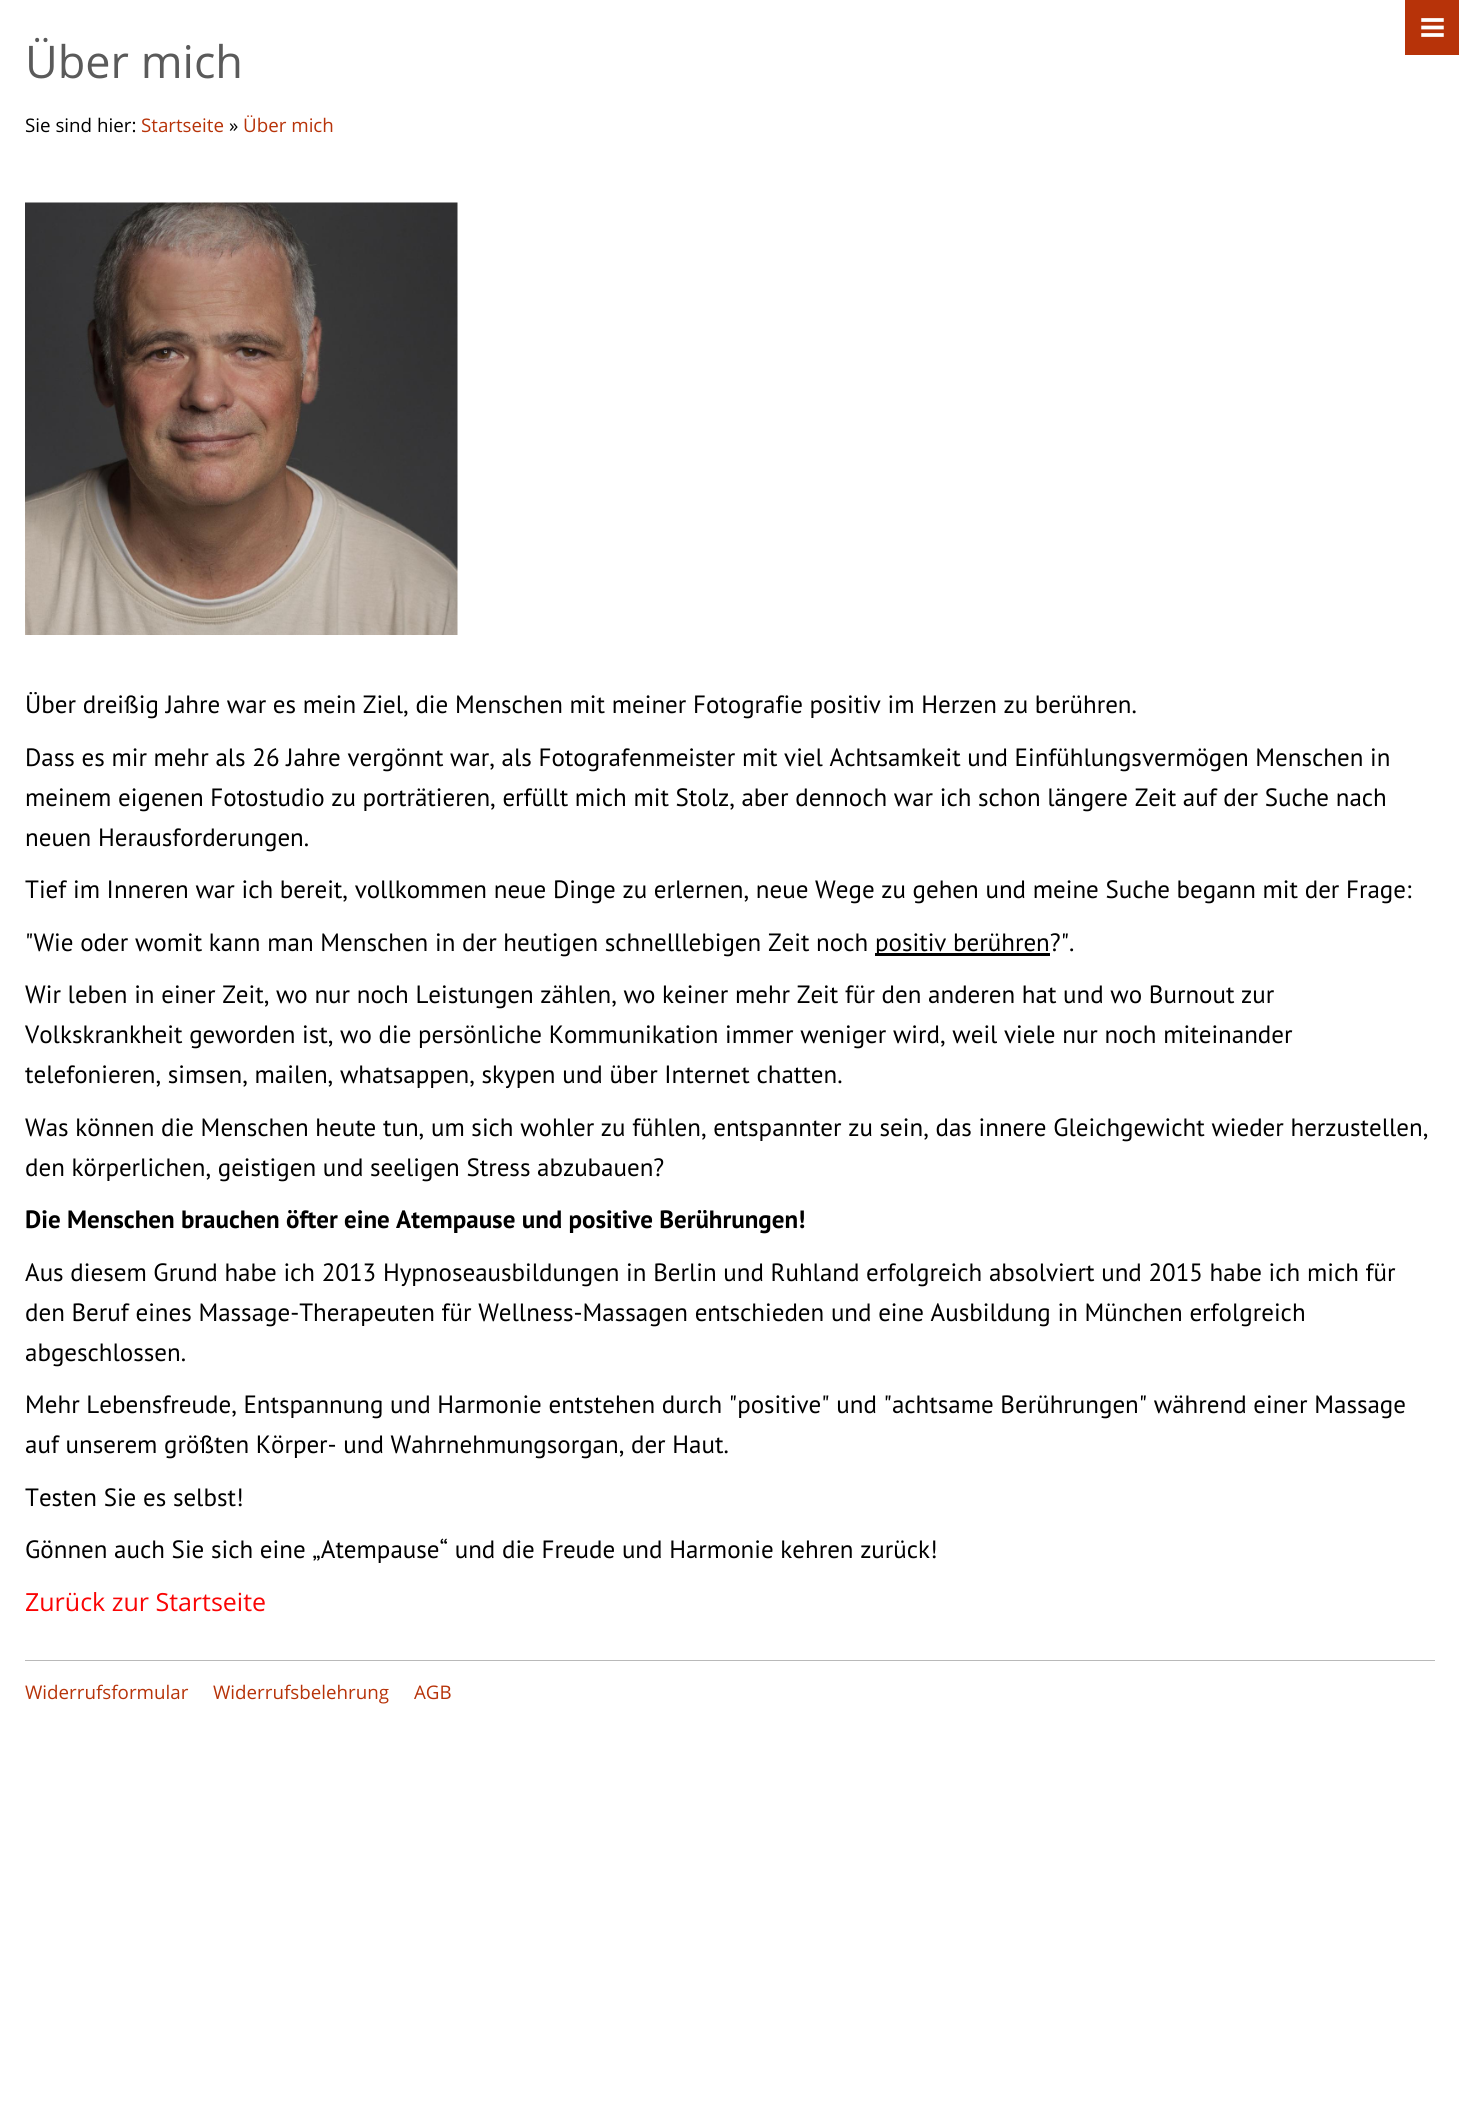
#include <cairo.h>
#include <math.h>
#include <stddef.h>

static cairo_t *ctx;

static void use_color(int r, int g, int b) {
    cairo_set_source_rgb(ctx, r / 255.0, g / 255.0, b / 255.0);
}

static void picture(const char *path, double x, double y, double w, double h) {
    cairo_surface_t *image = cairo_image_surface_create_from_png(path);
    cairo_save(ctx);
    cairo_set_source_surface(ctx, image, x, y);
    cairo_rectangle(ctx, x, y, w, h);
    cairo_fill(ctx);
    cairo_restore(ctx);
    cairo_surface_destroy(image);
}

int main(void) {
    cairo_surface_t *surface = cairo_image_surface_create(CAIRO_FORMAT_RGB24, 1459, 2118);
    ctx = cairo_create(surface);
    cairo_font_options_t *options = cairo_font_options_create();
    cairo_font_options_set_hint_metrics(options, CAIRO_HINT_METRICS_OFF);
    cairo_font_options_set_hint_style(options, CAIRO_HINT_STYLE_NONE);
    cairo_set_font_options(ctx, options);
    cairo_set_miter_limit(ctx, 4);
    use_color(255, 255, 255);
    cairo_paint(ctx);
    use_color(183, 51, 9);
    cairo_rectangle(ctx, 1405, 0, 54, 55);
    cairo_fill(ctx);
    picture("img1.png", 1421, 18, 23, 19);
    cairo_select_font_face(ctx, "Open Sans", CAIRO_FONT_SLANT_NORMAL, CAIRO_FONT_WEIGHT_NORMAL);
    cairo_set_font_size(ctx, 45);
    use_color(90, 90, 90);
    cairo_move_to(ctx, 25, 78);
    cairo_show_text(ctx, "Über mich");
    cairo_set_font_size(ctx, 18.75);
    use_color(0, 0, 0);
    cairo_move_to(ctx, 25, 132);
    cairo_show_text(ctx, "Sie sind hier:");
    use_color(183, 51, 9);
    cairo_move_to(ctx, 141, 132);
    cairo_show_text(ctx, "Startseite");
    use_color(0, 0, 0);
    cairo_move_to(ctx, 229, 132);
    cairo_show_text(ctx, "»");
    use_color(183, 51, 9);
    cairo_move_to(ctx, 243, 132);
    cairo_show_text(ctx, "Über mich");
    picture("img2.png", 25, 202, 433, 433);
    cairo_select_font_face(ctx, "PT Sans", CAIRO_FONT_SLANT_NORMAL, CAIRO_FONT_WEIGHT_NORMAL);
    cairo_set_font_size(ctx, 25);
    use_color(0, 0, 0);
    cairo_move_to(ctx, 25, 713);
    cairo_show_text(ctx, "Über dreißig Jahre war es mein Ziel, die Menschen mit meiner Fotografie positiv im Herzen zu berühren.");
    cairo_move_to(ctx, 25, 766);
    cairo_show_text(ctx, "Dass es mir mehr als 26 Jahre vergönnt war, als Fotografenmeister mit viel Achtsamkeit und Einfühlungsvermögen Menschen in");
    cairo_move_to(ctx, 25, 806);
    cairo_show_text(ctx, "meinem eigenen Fotostudio zu porträtieren, erfüllt mich mit Stolz, aber dennoch war ich schon längere Zeit auf der Suche nach");
    cairo_move_to(ctx, 25, 846);
    cairo_show_text(ctx, "neuen Herausforderungen.");
    cairo_move_to(ctx, 25, 898);
    cairo_show_text(ctx, "Tief im Inneren war ich bereit, vollkommen neue Dinge zu erlernen, neue Wege zu gehen und meine Suche begann mit der Frage:");
    cairo_move_to(ctx, 25, 951);
    cairo_show_text(ctx, "\"Wie oder womit kann man Menschen in der heutigen schnelllebigen Zeit noch");
    cairo_rectangle(ctx, 875, 953, 175, 3);
    cairo_fill(ctx);
    cairo_move_to(ctx, 875, 951);
    cairo_show_text(ctx, "positiv berühren?\".");
    cairo_move_to(ctx, 25, 1003);
    cairo_show_text(ctx, "Wir leben in einer Zeit, wo nur noch Leistungen zählen, wo keiner mehr Zeit für den anderen hat und wo Burnout zur");
    cairo_move_to(ctx, 25, 1043);
    cairo_show_text(ctx, "Volkskrankheit geworden ist, wo die persönliche Kommunikation immer weniger wird, weil viele nur noch miteinander");
    cairo_move_to(ctx, 25, 1083);
    cairo_show_text(ctx, "telefonieren, simsen, mailen, whatsappen, skypen und über Internet chatten.");
    cairo_move_to(ctx, 25, 1136);
    cairo_show_text(ctx, "Was können die Menschen heute tun, um sich wohler zu fühlen, entspannter zu sein, das innere Gleichgewicht wieder herzustellen,");
    cairo_move_to(ctx, 25, 1176);
    cairo_show_text(ctx, "den körperlichen, geistigen und seeligen Stress abzubauen?");
    cairo_select_font_face(ctx, "PT Sans", CAIRO_FONT_SLANT_NORMAL, CAIRO_FONT_WEIGHT_BOLD);
    cairo_move_to(ctx, 25, 1228);
    cairo_show_text(ctx, "Die Menschen brauchen öfter eine Atempause und positive Berührungen!");
    cairo_select_font_face(ctx, "PT Sans", CAIRO_FONT_SLANT_NORMAL, CAIRO_FONT_WEIGHT_NORMAL);
    cairo_move_to(ctx, 25, 1281);
    cairo_show_text(ctx, "Aus diesem Grund habe ich 2013 Hypnoseausbildungen in Berlin und Ruhland erfolgreich absolviert und 2015 habe ich mich für");
    cairo_move_to(ctx, 25, 1321);
    cairo_show_text(ctx, "den Beruf eines Massage-Therapeuten für Wellness-Massagen entschieden und eine Ausbildung in München erfolgreich");
    cairo_move_to(ctx, 25, 1361);
    cairo_show_text(ctx, "abgeschlossen.");
    cairo_move_to(ctx, 25, 1413);
    cairo_show_text(ctx, "Mehr Lebensfreude, Entspannung und Harmonie entstehen durch \"positive\" und \"achtsame Berührungen\" während einer Massage");
    cairo_move_to(ctx, 25, 1453);
    cairo_show_text(ctx, "auf unserem größten Körper- und Wahrnehmungsorgan, der Haut.");
    cairo_move_to(ctx, 25, 1506);
    cairo_show_text(ctx, "Testen Sie es selbst!");
    cairo_move_to(ctx, 25, 1558);
    cairo_show_text(ctx, "Gönnen auch Sie sich eine „Atempause“ und die Freude und Harmonie kehren zurück!");
    cairo_select_font_face(ctx, "Open Sans", CAIRO_FONT_SLANT_NORMAL, CAIRO_FONT_WEIGHT_NORMAL);
    use_color(250, 4, 4);
    cairo_move_to(ctx, 25, 1611);
    cairo_show_text(ctx, "Zurück zur Startseite");
    use_color(185, 185, 185);
    cairo_rectangle(ctx, 25, 1660, 1410, 1);
    cairo_fill(ctx);
    cairo_set_font_size(ctx, 18.75);
    use_color(183, 51, 9);
    cairo_move_to(ctx, 25, 1699);
    cairo_show_text(ctx, "Widerrufsformular");
    cairo_move_to(ctx, 213, 1699);
    cairo_show_text(ctx, "Widerrufsbelehrung");
    cairo_move_to(ctx, 414, 1699);
    cairo_show_text(ctx, "AGB");
    cairo_surface_write_to_png(surface, "result.png");
    cairo_font_options_destroy(options);
    cairo_destroy(ctx);
    cairo_surface_destroy(surface);
    return 0;
}
